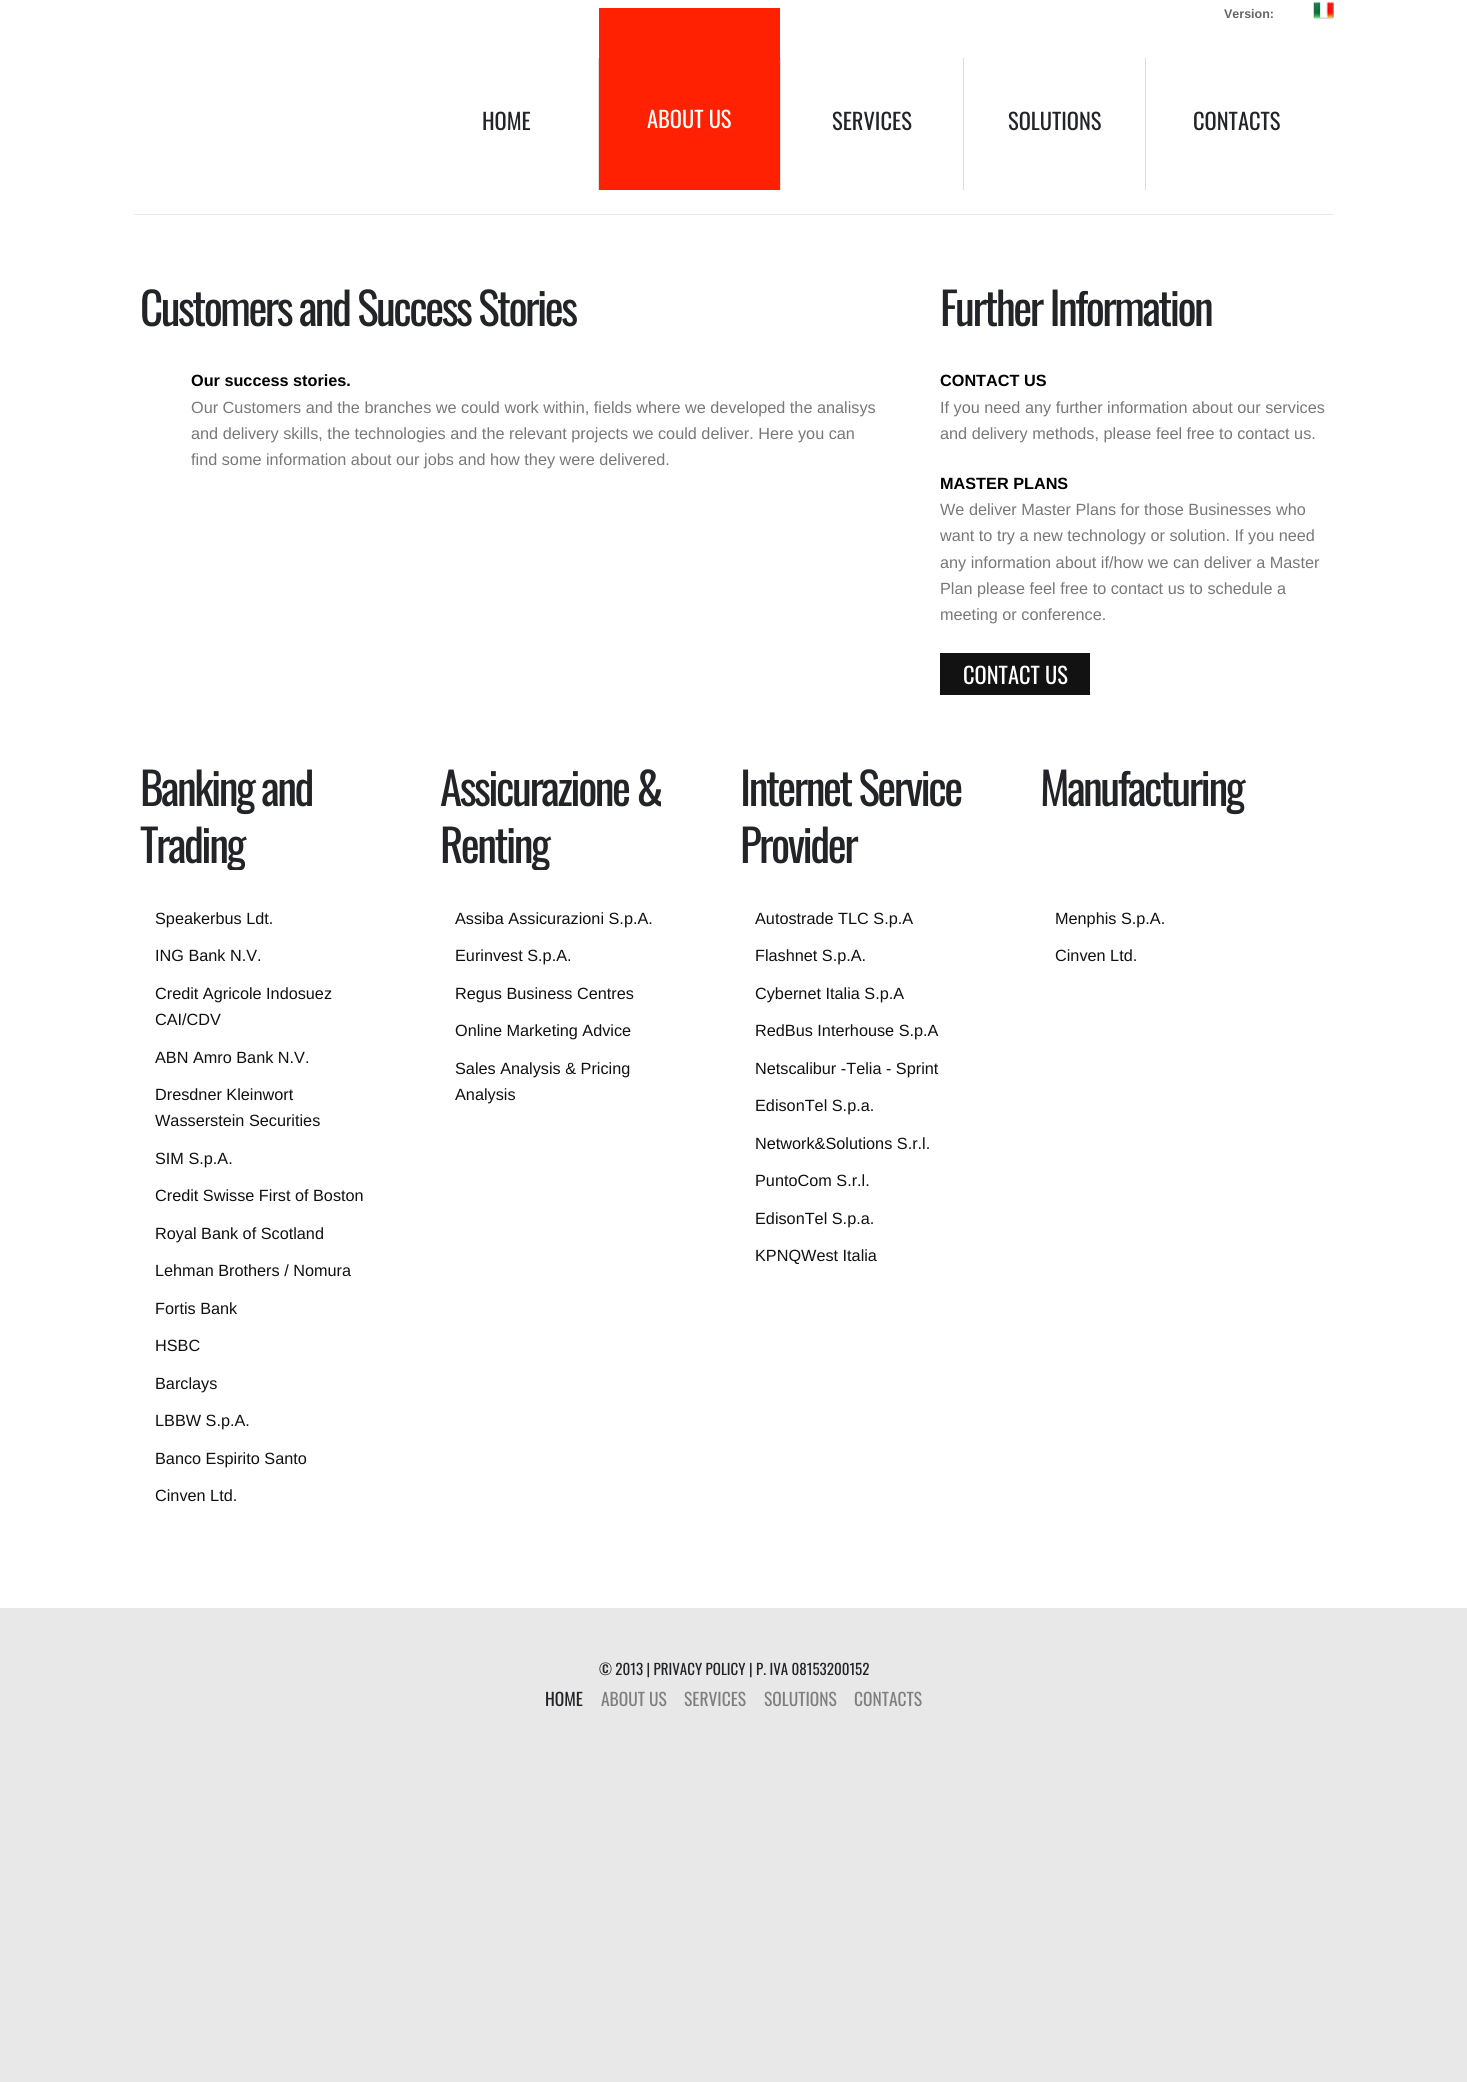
#include <cairo.h>
#include <math.h>
#include <stddef.h>

static cairo_t *ctx;

static void use_color(int r, int g, int b) {
    cairo_set_source_rgb(ctx, r / 255.0, g / 255.0, b / 255.0);
}

static void spaced_text(double x, double y, const char *s, double letter, double word) {
    cairo_move_to(ctx, x, y);
    while (*s) {
        char ch[5] = {0};
        int n = 0;
        do ch[n++] = *s++; while ((*s & 0xC0) == 0x80);
        cairo_show_text(ctx, ch);
        cairo_rel_move_to(ctx, letter + word * (*ch == ' '), 0);
    }
}

static void picture(const char *path, double x, double y, double w, double h) {
    cairo_surface_t *image = cairo_image_surface_create_from_png(path);
    cairo_save(ctx);
    cairo_set_source_surface(ctx, image, x, y);
    cairo_rectangle(ctx, x, y, w, h);
    cairo_fill(ctx);
    cairo_restore(ctx);
    cairo_surface_destroy(image);
}

int main(void) {
    cairo_surface_t *surface = cairo_image_surface_create(CAIRO_FORMAT_RGB24, 1467, 2082);
    ctx = cairo_create(surface);
    cairo_font_options_t *options = cairo_font_options_create();
    cairo_font_options_set_hint_metrics(options, CAIRO_HINT_METRICS_OFF);
    cairo_font_options_set_hint_style(options, CAIRO_HINT_STYLE_NONE);
    cairo_set_font_options(ctx, options);
    cairo_set_miter_limit(ctx, 4);
    use_color(232, 232, 232);
    cairo_paint(ctx);
    use_color(255, 255, 255);
    cairo_rectangle(ctx, 0, 0, 1467, 1608);
    cairo_fill(ctx);
    cairo_select_font_face(ctx, "Liberation Sans", CAIRO_FONT_SLANT_NORMAL, CAIRO_FONT_WEIGHT_BOLD);
    cairo_set_font_size(ctx, 12.5);
    use_color(102, 102, 102);
    cairo_move_to(ctx, 1224, 18);
    cairo_show_text(ctx, "Version:");
    picture("img1.png", 1313, 1, 21, 18);
    use_color(221, 221, 221);
    cairo_rectangle(ctx, 598, 58, 1, 132);
    cairo_fill(ctx);
    cairo_select_font_face(ctx, "Oswald", CAIRO_FONT_SLANT_NORMAL, CAIRO_FONT_WEIGHT_NORMAL);
    cairo_set_font_size(ctx, 22.5);
    use_color(35, 36, 40);
    cairo_move_to(ctx, 482, 130);
    cairo_show_text(ctx, "HOME");
    use_color(255, 33, 2);
    cairo_rectangle(ctx, 599, 8, 181, 182);
    cairo_fill(ctx);
    use_color(221, 221, 221);
    cairo_rectangle(ctx, 780, 58, 1, 132);
    cairo_fill(ctx);
    use_color(255, 255, 255);
    cairo_move_to(ctx, 647, 128);
    cairo_show_text(ctx, "ABOUT US");
    use_color(221, 221, 221);
    cairo_rectangle(ctx, 963, 58, 1, 132);
    cairo_fill(ctx);
    use_color(35, 36, 40);
    cairo_move_to(ctx, 832, 130);
    cairo_show_text(ctx, "SERVICES");
    use_color(221, 221, 221);
    cairo_rectangle(ctx, 1145, 58, 1, 132);
    cairo_fill(ctx);
    use_color(35, 36, 40);
    cairo_move_to(ctx, 1008, 130);
    cairo_show_text(ctx, "SOLUTIONS");
    cairo_move_to(ctx, 1193, 130);
    cairo_show_text(ctx, "CONTACTS");
    use_color(235, 235, 235);
    cairo_rectangle(ctx, 134, 214, 1200, 1);
    cairo_fill(ctx);
    cairo_set_font_size(ctx, 45);
    use_color(35, 36, 40);
    spaced_text(140, 326, "Customers and Success Stories", -2.5, 0);
    cairo_select_font_face(ctx, "Liberation Sans", CAIRO_FONT_SLANT_NORMAL, CAIRO_FONT_WEIGHT_BOLD);
    cairo_set_font_size(ctx, 16.25);
    use_color(0, 0, 0);
    cairo_move_to(ctx, 191, 386);
    cairo_show_text(ctx, "Our success stories.");
    cairo_select_font_face(ctx, "Liberation Sans", CAIRO_FONT_SLANT_NORMAL, CAIRO_FONT_WEIGHT_NORMAL);
    use_color(120, 120, 120);
    cairo_move_to(ctx, 191, 413);
    cairo_show_text(ctx, "Our Customers and the branches we could work within, fields where we developed the analisys");
    cairo_move_to(ctx, 191, 439);
    cairo_show_text(ctx, "and delivery skills, the technologies and the relevant projects we could deliver. Here you can");
    cairo_move_to(ctx, 191, 465);
    cairo_show_text(ctx, "find some information about our jobs and how they were delivered.");
    cairo_select_font_face(ctx, "Oswald", CAIRO_FONT_SLANT_NORMAL, CAIRO_FONT_WEIGHT_NORMAL);
    cairo_set_font_size(ctx, 45);
    use_color(35, 36, 40);
    spaced_text(940, 326, "Further Information", -2.5, 0);
    cairo_select_font_face(ctx, "Liberation Sans", CAIRO_FONT_SLANT_NORMAL, CAIRO_FONT_WEIGHT_BOLD);
    cairo_set_font_size(ctx, 16.25);
    use_color(0, 0, 0);
    cairo_move_to(ctx, 940, 386);
    cairo_show_text(ctx, "CONTACT US");
    cairo_select_font_face(ctx, "Liberation Sans", CAIRO_FONT_SLANT_NORMAL, CAIRO_FONT_WEIGHT_NORMAL);
    use_color(120, 120, 120);
    cairo_move_to(ctx, 940, 413);
    cairo_show_text(ctx, "If you need any further information about our services");
    cairo_move_to(ctx, 940, 439);
    cairo_show_text(ctx, "and delivery methods, please feel free to contact us.");
    cairo_select_font_face(ctx, "Liberation Sans", CAIRO_FONT_SLANT_NORMAL, CAIRO_FONT_WEIGHT_BOLD);
    use_color(0, 0, 0);
    cairo_move_to(ctx, 940, 489);
    cairo_show_text(ctx, "MASTER PLANS");
    cairo_select_font_face(ctx, "Liberation Sans", CAIRO_FONT_SLANT_NORMAL, CAIRO_FONT_WEIGHT_NORMAL);
    use_color(120, 120, 120);
    cairo_move_to(ctx, 940, 515);
    cairo_show_text(ctx, "We deliver Master Plans for those Businesses who");
    cairo_move_to(ctx, 940, 541);
    cairo_show_text(ctx, "want to try a new technology or solution. If you need");
    cairo_move_to(ctx, 940, 568);
    cairo_show_text(ctx, "any information about if/how we can deliver a Master");
    cairo_move_to(ctx, 940, 594);
    cairo_show_text(ctx, "Plan please feel free to contact us to schedule a");
    cairo_move_to(ctx, 940, 620);
    cairo_show_text(ctx, "meeting or conference.");
    use_color(18, 18, 18);
    cairo_rectangle(ctx, 940, 653, 150, 42);
    cairo_fill(ctx);
    cairo_select_font_face(ctx, "Oswald", CAIRO_FONT_SLANT_NORMAL, CAIRO_FONT_WEIGHT_NORMAL);
    cairo_set_font_size(ctx, 22.5);
    use_color(255, 255, 255);
    cairo_move_to(ctx, 963, 684);
    cairo_show_text(ctx, "CONTACT US");
    cairo_set_font_size(ctx, 45);
    use_color(35, 36, 40);
    spaced_text(140, 806, "Banking and", -2.5, 0);
    cairo_save(ctx);
    cairo_rectangle(ctx, 140, 758, 238, 112);
    cairo_clip(ctx);
    spaced_text(140, 863, "Trading", -2.5, 0);
    cairo_restore(ctx);
    cairo_select_font_face(ctx, "Liberation Sans", CAIRO_FONT_SLANT_NORMAL, CAIRO_FONT_WEIGHT_NORMAL);
    cairo_set_font_size(ctx, 16.25);
    use_color(16, 16, 16);
    cairo_move_to(ctx, 155, 924);
    cairo_show_text(ctx, "Speakerbus Ldt.");
    cairo_move_to(ctx, 155, 961);
    cairo_show_text(ctx, "ING Bank N.V.");
    cairo_move_to(ctx, 155, 999);
    cairo_show_text(ctx, "Credit Agricole Indosuez");
    cairo_move_to(ctx, 155, 1025);
    cairo_show_text(ctx, "CAI/CDV");
    cairo_move_to(ctx, 155, 1063);
    cairo_show_text(ctx, "ABN Amro Bank N.V.");
    cairo_move_to(ctx, 155, 1100);
    cairo_show_text(ctx, "Dresdner Kleinwort");
    cairo_move_to(ctx, 155, 1126);
    cairo_show_text(ctx, "Wasserstein Securities");
    cairo_move_to(ctx, 155, 1164);
    cairo_show_text(ctx, "SIM S.p.A.");
    cairo_move_to(ctx, 155, 1201);
    cairo_show_text(ctx, "Credit Swisse First of Boston");
    cairo_move_to(ctx, 155, 1239);
    cairo_show_text(ctx, "Royal Bank of Scotland");
    cairo_move_to(ctx, 155, 1276);
    cairo_show_text(ctx, "Lehman Brothers / Nomura");
    cairo_move_to(ctx, 155, 1314);
    cairo_show_text(ctx, "Fortis Bank");
    cairo_move_to(ctx, 155, 1351);
    cairo_show_text(ctx, "HSBC");
    cairo_move_to(ctx, 155, 1389);
    cairo_show_text(ctx, "Barclays");
    cairo_move_to(ctx, 155, 1426);
    cairo_show_text(ctx, "LBBW S.p.A.");
    cairo_move_to(ctx, 155, 1464);
    cairo_show_text(ctx, "Banco Espirito Santo");
    cairo_move_to(ctx, 155, 1501);
    cairo_show_text(ctx, "Cinven Ltd.");
    cairo_select_font_face(ctx, "Oswald", CAIRO_FONT_SLANT_NORMAL, CAIRO_FONT_WEIGHT_NORMAL);
    cairo_set_font_size(ctx, 45);
    use_color(35, 36, 40);
    spaced_text(440, 806, "Assicurazione &", -2.5, 0);
    cairo_save(ctx);
    cairo_rectangle(ctx, 440, 758, 238, 112);
    cairo_clip(ctx);
    spaced_text(440, 863, "Renting", -2.5, 0);
    cairo_restore(ctx);
    cairo_select_font_face(ctx, "Liberation Sans", CAIRO_FONT_SLANT_NORMAL, CAIRO_FONT_WEIGHT_NORMAL);
    cairo_set_font_size(ctx, 16.25);
    use_color(16, 16, 16);
    cairo_move_to(ctx, 455, 924);
    cairo_show_text(ctx, "Assiba Assicurazioni S.p.A.");
    cairo_move_to(ctx, 455, 961);
    cairo_show_text(ctx, "Eurinvest S.p.A.");
    cairo_move_to(ctx, 455, 999);
    cairo_show_text(ctx, "Regus Business Centres");
    cairo_move_to(ctx, 455, 1036);
    cairo_show_text(ctx, "Online Marketing Advice");
    cairo_move_to(ctx, 455, 1074);
    cairo_show_text(ctx, "Sales Analysis & Pricing");
    cairo_move_to(ctx, 455, 1100);
    cairo_show_text(ctx, "Analysis");
    cairo_select_font_face(ctx, "Oswald", CAIRO_FONT_SLANT_NORMAL, CAIRO_FONT_WEIGHT_NORMAL);
    cairo_set_font_size(ctx, 45);
    use_color(35, 36, 40);
    spaced_text(740, 806, "Internet Service", -2.5, 0);
    spaced_text(740, 863, "Provider", -2.5, 0);
    cairo_select_font_face(ctx, "Liberation Sans", CAIRO_FONT_SLANT_NORMAL, CAIRO_FONT_WEIGHT_NORMAL);
    cairo_set_font_size(ctx, 16.25);
    use_color(16, 16, 16);
    cairo_move_to(ctx, 755, 924);
    cairo_show_text(ctx, "Autostrade TLC S.p.A");
    cairo_move_to(ctx, 755, 961);
    cairo_show_text(ctx, "Flashnet S.p.A.");
    cairo_move_to(ctx, 755, 999);
    cairo_show_text(ctx, "Cybernet Italia S.p.A");
    cairo_move_to(ctx, 755, 1036);
    cairo_show_text(ctx, "RedBus Interhouse S.p.A");
    cairo_move_to(ctx, 755, 1074);
    cairo_show_text(ctx, "Netscalibur -Telia - Sprint");
    cairo_move_to(ctx, 755, 1111);
    cairo_show_text(ctx, "EdisonTel S.p.a.");
    cairo_move_to(ctx, 755, 1149);
    cairo_show_text(ctx, "Network&Solutions S.r.l.");
    cairo_move_to(ctx, 755, 1186);
    cairo_show_text(ctx, "PuntoCom S.r.l.");
    cairo_move_to(ctx, 755, 1224);
    cairo_show_text(ctx, "EdisonTel S.p.a.");
    cairo_move_to(ctx, 755, 1261);
    cairo_show_text(ctx, "KPNQWest Italia");
    cairo_select_font_face(ctx, "Oswald", CAIRO_FONT_SLANT_NORMAL, CAIRO_FONT_WEIGHT_NORMAL);
    cairo_set_font_size(ctx, 45);
    use_color(35, 36, 40);
    spaced_text(1040, 806, "Manufacturing", -2.5, 0);
    cairo_select_font_face(ctx, "Liberation Sans", CAIRO_FONT_SLANT_NORMAL, CAIRO_FONT_WEIGHT_NORMAL);
    cairo_set_font_size(ctx, 16.25);
    use_color(16, 16, 16);
    cairo_move_to(ctx, 1055, 924);
    cairo_show_text(ctx, "Menphis S.p.A.");
    cairo_move_to(ctx, 1055, 961);
    cairo_show_text(ctx, "Cinven Ltd.");
    cairo_select_font_face(ctx, "Oswald", CAIRO_FONT_SLANT_NORMAL, CAIRO_FONT_WEIGHT_NORMAL);
    cairo_set_font_size(ctx, 15);
    use_color(35, 36, 40);
    cairo_move_to(ctx, 599, 1675);
    cairo_show_text(ctx, "© 2013 | PRIVACY POLICY | P. IVA 08153200152");
    cairo_set_font_size(ctx, 17.5);
    cairo_move_to(ctx, 545, 1706);
    cairo_show_text(ctx, "HOME");
    use_color(127, 127, 127);
    cairo_move_to(ctx, 601, 1706);
    cairo_show_text(ctx, "ABOUT US");
    cairo_move_to(ctx, 684, 1706);
    cairo_show_text(ctx, "SERVICES");
    cairo_move_to(ctx, 764, 1706);
    cairo_show_text(ctx, "SOLUTIONS");
    cairo_move_to(ctx, 854, 1706);
    cairo_show_text(ctx, "CONTACTS");
    cairo_surface_write_to_png(surface, "result.png");
    cairo_font_options_destroy(options);
    cairo_destroy(ctx);
    cairo_surface_destroy(surface);
    return 0;
}
